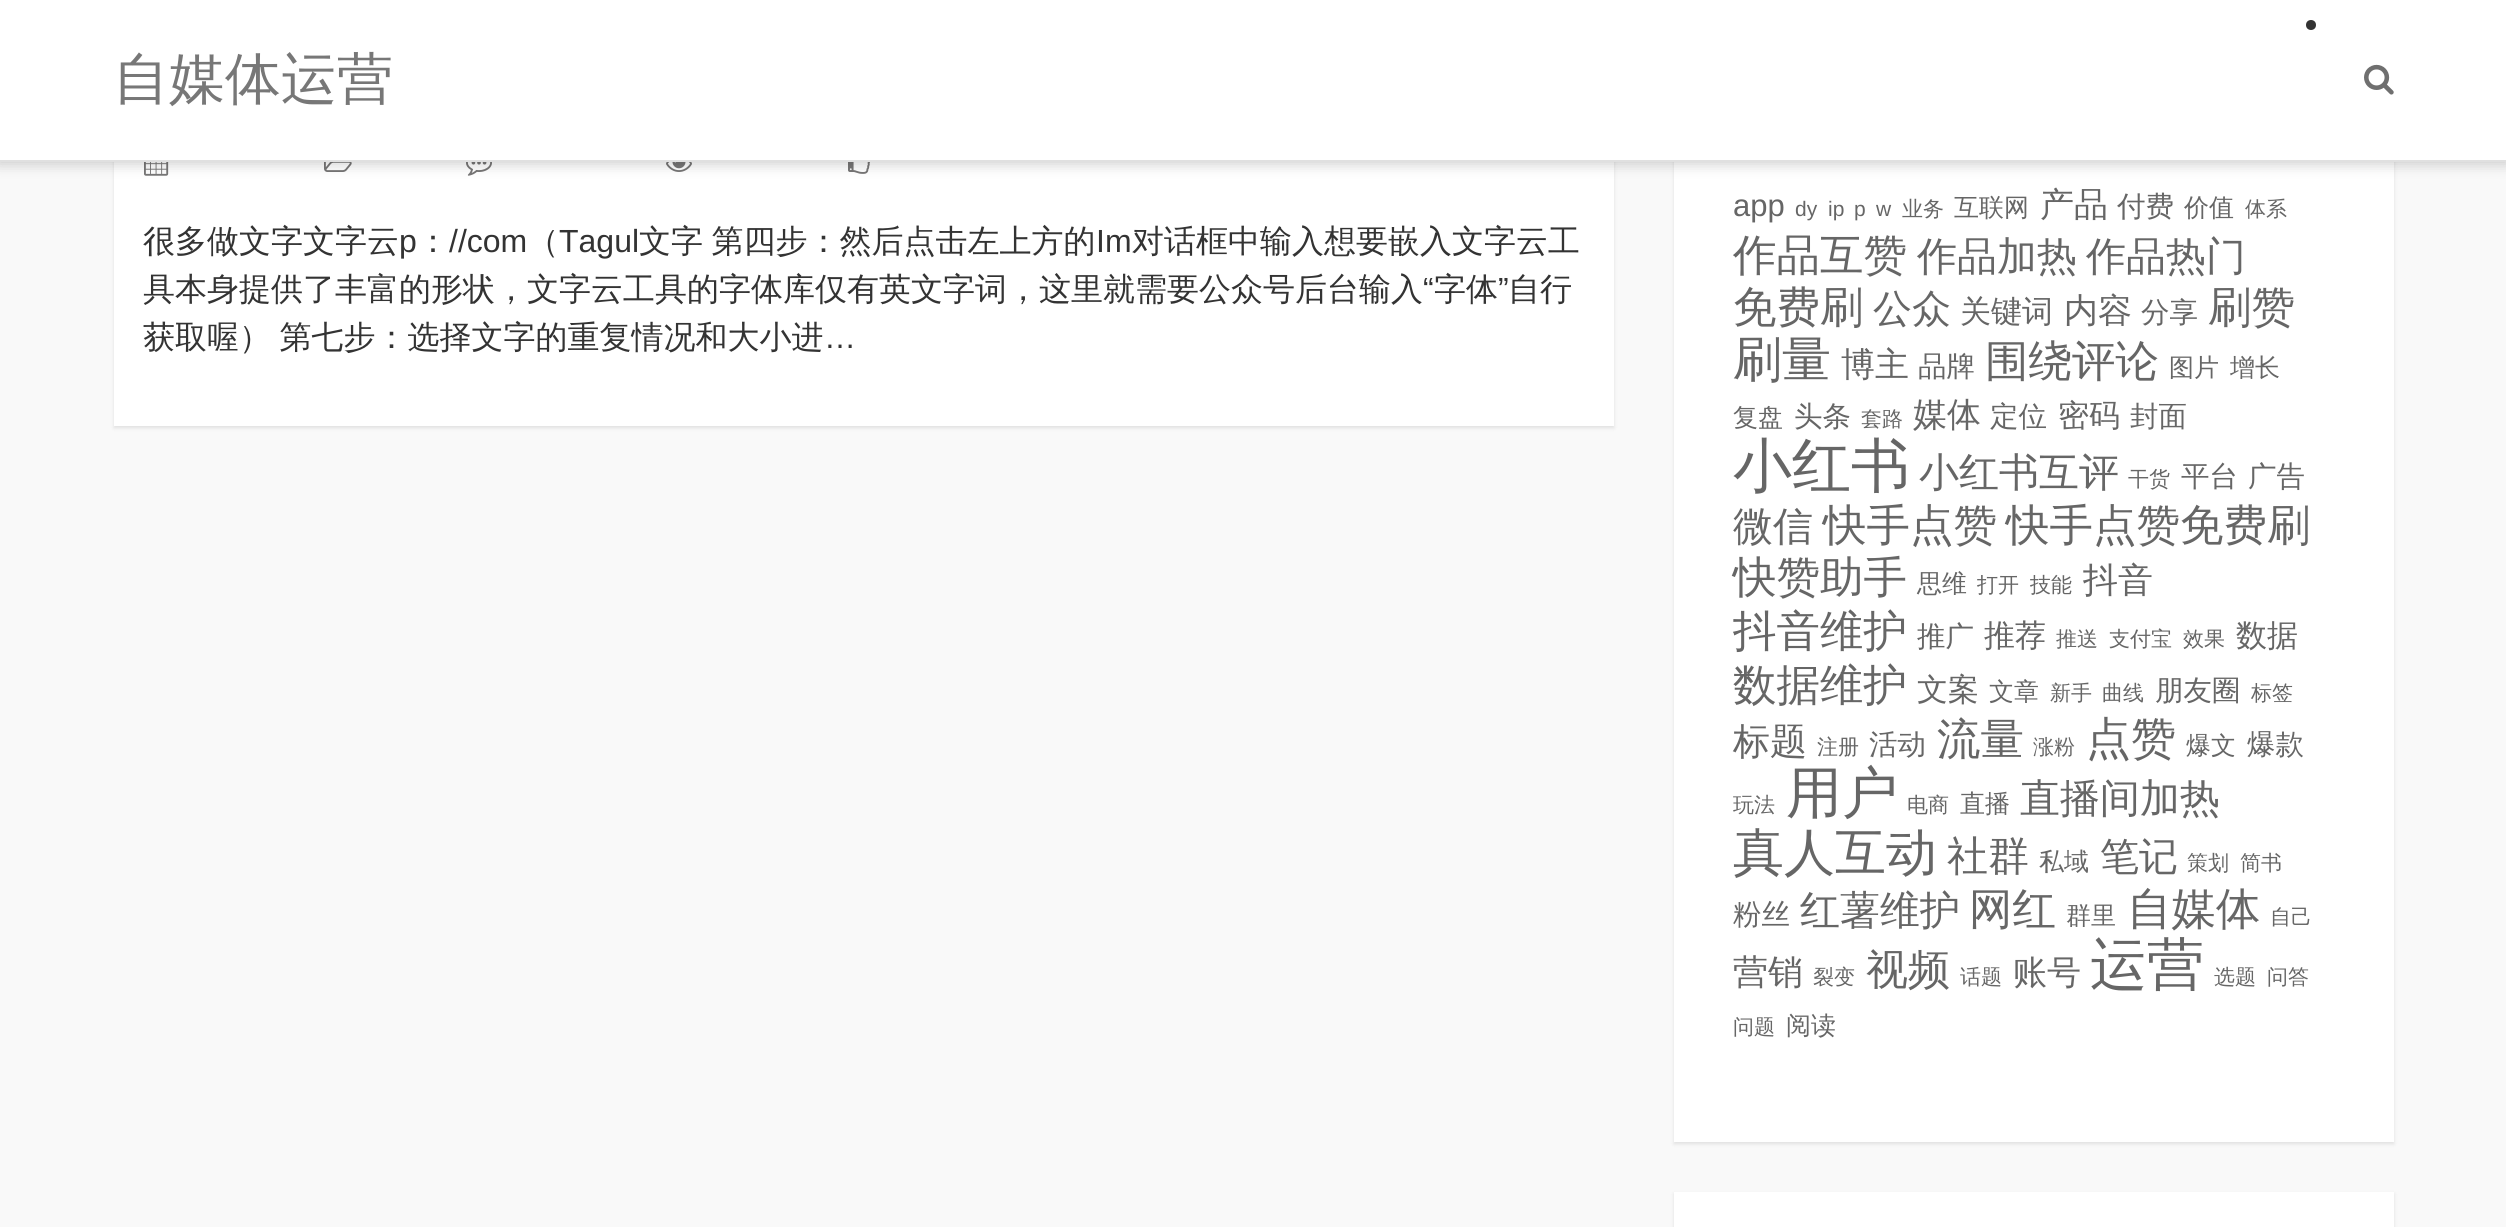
#include <cairo.h>
#include <math.h>
#include <stddef.h>

static cairo_t *ctx;

static void use_color(int r, int g, int b) {
    cairo_set_source_rgb(ctx, r / 255.0, g / 255.0, b / 255.0);
}

static void spaced_text(double x, double y, const char *s, double letter, double word) {
    cairo_move_to(ctx, x, y);
    while (*s) {
        char ch[5] = {0};
        int n = 0;
        do ch[n++] = *s++; while ((*s & 0xC0) == 0x80);
        cairo_show_text(ctx, ch);
        cairo_rel_move_to(ctx, letter + word * (*ch == ' '), 0);
    }
}

static void round_rect(double x, double y, double w, double h, double r) {
    cairo_new_sub_path(ctx);
    cairo_arc(ctx, x + w - r, y + h - r, r, 0, M_PI / 2);
    cairo_arc(ctx, x + r, y + h - r, r, M_PI / 2, M_PI);
    cairo_arc(ctx, x + r, y + r, r, M_PI, 1.5 * M_PI);
    cairo_arc(ctx, x + w - r, y + r, r, 1.5 * M_PI, 2 * M_PI);
    cairo_close_path(ctx);
}

static void shadow(double x, double y, double w, double h, double r, double blur, double alpha) {
    cairo_push_group_with_content(ctx, CAIRO_CONTENT_ALPHA);
    cairo_set_operator(ctx, CAIRO_OPERATOR_SOURCE);
    for (int i = 15; i >= -15 && fmin(w, h) + blur * i / 3 > 0; i -= 2) {
        double e = blur * i / 6;
        cairo_set_source_rgba(ctx, 0, 0, 0, alpha * erfc((i - 1) / 8.5) / 2);
        round_rect(x - e, y - e, w + 2 * e, h + 2 * e, fmax(0, fmin(r + e + blur * .6, fmin(w, h) / 2 + e)));
        cairo_fill(ctx);
    }
    cairo_pattern_t *soft = cairo_pop_group(ctx);
    cairo_mask(ctx, soft);
    cairo_pattern_destroy(soft);
}

static void picture(const char *path, double x, double y, double w, double h) {
    cairo_surface_t *image = cairo_image_surface_create_from_png(path);
    cairo_save(ctx);
    cairo_set_source_surface(ctx, image, x, y);
    cairo_rectangle(ctx, x, y, w, h);
    cairo_fill(ctx);
    cairo_restore(ctx);
    cairo_surface_destroy(image);
}

int main(void) {
    cairo_surface_t *surface = cairo_image_surface_create(CAIRO_FORMAT_RGB24, 2506, 1227);
    ctx = cairo_create(surface);
    cairo_font_options_t *options = cairo_font_options_create();
    cairo_font_options_set_hint_metrics(options, CAIRO_HINT_METRICS_OFF);
    cairo_font_options_set_hint_style(options, CAIRO_HINT_STYLE_NONE);
    cairo_set_font_options(ctx, options);
    cairo_set_miter_limit(ctx, 4);
    use_color(249, 249, 249);
    cairo_paint(ctx);
    use_color(0, 0, 0);
    shadow(114, 16, 1500, 412, 0, 2, 0.1);
    use_color(255, 255, 255);
    cairo_rectangle(ctx, 114, 162, 1500, 264);
    cairo_fill(ctx);
    picture("img2.png", 144, 162, 25, 14);
    picture("img3.png", 324, 162, 28, 10);
    picture("img4.png", 466, 162, 26, 14);
    picture("img5.png", 666, 162, 26, 10);
    picture("img6.png", 848, 162, 22, 12);
    use_color(0, 0, 0);
    shadow(1674, 124, 720, 1020, 0, 2, 0.1);
    use_color(255, 255, 255);
    cairo_rectangle(ctx, 1674, 162, 720, 980);
    cairo_fill(ctx);
    use_color(0, 0, 0);
    shadow(-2, -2, 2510, 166, 0, 7, 0.2);
    use_color(255, 255, 255);
    cairo_rectangle(ctx, 0, 0, 2506, 160);
    cairo_fill(ctx);
    use_color(224, 224, 224);
    cairo_rectangle(ctx, 0, 160, 2506, 2);
    cairo_fill(ctx);
    use_color(51, 51, 51);
    cairo_arc(ctx, 2311, 25, 5, 0, 2 * M_PI);
    cairo_fill(ctx);
    cairo_select_font_face(ctx, "WenQuanYi Zen Hei Medium", CAIRO_FONT_SLANT_NORMAL, CAIRO_FONT_WEIGHT_NORMAL);
    cairo_set_font_size(ctx, 56);
    use_color(119, 119, 119);
    cairo_move_to(ctx, 113, 98);
    cairo_show_text(ctx, "自媒体运营");
    picture("img1.png", 2364, 64, 30, 31);
    cairo_set_font_size(ctx, 32);
    use_color(51, 51, 51);
    cairo_move_to(ctx, 143, 252);
    cairo_show_text(ctx, "很多做文字文字云");
    cairo_select_font_face(ctx, "Liberation Sans", CAIRO_FONT_SLANT_NORMAL, CAIRO_FONT_WEIGHT_NORMAL);
    cairo_move_to(ctx, 399, 252);
    cairo_show_text(ctx, "p");
    cairo_select_font_face(ctx, "WenQuanYi Zen Hei Medium", CAIRO_FONT_SLANT_NORMAL, CAIRO_FONT_WEIGHT_NORMAL);
    cairo_move_to(ctx, 417, 252);
    cairo_show_text(ctx, "：");
    cairo_select_font_face(ctx, "Liberation Sans", CAIRO_FONT_SLANT_NORMAL, CAIRO_FONT_WEIGHT_NORMAL);
    cairo_move_to(ctx, 449, 252);
    cairo_show_text(ctx, "//com");
    cairo_select_font_face(ctx, "WenQuanYi Zen Hei Medium", CAIRO_FONT_SLANT_NORMAL, CAIRO_FONT_WEIGHT_NORMAL);
    cairo_move_to(ctx, 527, 252);
    cairo_show_text(ctx, "（");
    cairo_select_font_face(ctx, "Liberation Sans", CAIRO_FONT_SLANT_NORMAL, CAIRO_FONT_WEIGHT_NORMAL);
    cairo_move_to(ctx, 559, 252);
    cairo_show_text(ctx, "Tagul");
    cairo_select_font_face(ctx, "WenQuanYi Zen Hei Medium", CAIRO_FONT_SLANT_NORMAL, CAIRO_FONT_WEIGHT_NORMAL);
    spaced_text(639, 252, "文字 第四步：然后点击左上方的", 0, -1);
    cairo_select_font_face(ctx, "Liberation Sans", CAIRO_FONT_SLANT_NORMAL, CAIRO_FONT_WEIGHT_NORMAL);
    cairo_move_to(ctx, 1096, 252);
    cairo_show_text(ctx, "Im");
    cairo_select_font_face(ctx, "WenQuanYi Zen Hei Medium", CAIRO_FONT_SLANT_NORMAL, CAIRO_FONT_WEIGHT_NORMAL);
    cairo_move_to(ctx, 1132, 252);
    cairo_show_text(ctx, "对话框中输入想要嵌入文字云工");
    cairo_move_to(ctx, 143, 300);
    cairo_show_text(ctx, "具本身提供了丰富的形状，文字云工具的字体库仅有英文字词，这里就需要公众号后台输入");
    cairo_select_font_face(ctx, "Liberation Sans", CAIRO_FONT_SLANT_NORMAL, CAIRO_FONT_WEIGHT_NORMAL);
    cairo_move_to(ctx, 1423, 300);
    cairo_show_text(ctx, "“");
    cairo_select_font_face(ctx, "WenQuanYi Zen Hei Medium", CAIRO_FONT_SLANT_NORMAL, CAIRO_FONT_WEIGHT_NORMAL);
    cairo_move_to(ctx, 1434, 300);
    cairo_show_text(ctx, "字体");
    cairo_select_font_face(ctx, "Liberation Sans", CAIRO_FONT_SLANT_NORMAL, CAIRO_FONT_WEIGHT_NORMAL);
    cairo_move_to(ctx, 1498, 300);
    cairo_show_text(ctx, "”");
    cairo_select_font_face(ctx, "WenQuanYi Zen Hei Medium", CAIRO_FONT_SLANT_NORMAL, CAIRO_FONT_WEIGHT_NORMAL);
    cairo_move_to(ctx, 1508, 300);
    cairo_show_text(ctx, "自行");
    spaced_text(143, 348, "获取喔） 第七步：选择文字的重复情况和大小进", 0, -1);
    cairo_select_font_face(ctx, "Liberation Sans", CAIRO_FONT_SLANT_NORMAL, CAIRO_FONT_WEIGHT_NORMAL);
    cairo_move_to(ctx, 824, 348);
    cairo_show_text(ctx, "…");
    cairo_set_font_size(ctx, 31);
    use_color(102, 102, 102);
    cairo_move_to(ctx, 1733, 216);
    cairo_show_text(ctx, "app");
    cairo_set_font_size(ctx, 21);
    cairo_move_to(ctx, 1795, 216);
    cairo_show_text(ctx, "dy");
    cairo_move_to(ctx, 1828, 216);
    cairo_show_text(ctx, "ip");
    cairo_move_to(ctx, 1854, 216);
    cairo_show_text(ctx, "p");
    cairo_move_to(ctx, 1876, 216);
    cairo_show_text(ctx, "w");
    cairo_select_font_face(ctx, "WenQuanYi Zen Hei Medium", CAIRO_FONT_SLANT_NORMAL, CAIRO_FONT_WEIGHT_NORMAL);
    cairo_move_to(ctx, 1902, 216);
    cairo_show_text(ctx, "业务");
    cairo_set_font_size(ctx, 25);
    cairo_move_to(ctx, 1954, 216);
    cairo_show_text(ctx, "互联网");
    cairo_set_font_size(ctx, 34);
    cairo_move_to(ctx, 2040, 216);
    cairo_show_text(ctx, "产品");
    cairo_set_font_size(ctx, 28.5);
    cairo_move_to(ctx, 2117, 216);
    cairo_show_text(ctx, "付费");
    cairo_set_font_size(ctx, 25);
    cairo_move_to(ctx, 2184, 216);
    cairo_show_text(ctx, "价值");
    cairo_set_font_size(ctx, 21);
    cairo_move_to(ctx, 2245, 216);
    cairo_show_text(ctx, "体系");
    cairo_set_font_size(ctx, 43.5);
    cairo_move_to(ctx, 1733, 270);
    cairo_show_text(ctx, "作品互赞");
    cairo_set_font_size(ctx, 40);
    cairo_move_to(ctx, 1917, 270);
    cairo_show_text(ctx, "作品加热");
    cairo_move_to(ctx, 2086, 270);
    cairo_show_text(ctx, "作品热门");
    cairo_set_font_size(ctx, 43.5);
    cairo_move_to(ctx, 1733, 322);
    cairo_show_text(ctx, "免费刷");
    cairo_set_font_size(ctx, 39);
    cairo_move_to(ctx, 1873, 322);
    cairo_show_text(ctx, "公众");
    cairo_set_font_size(ctx, 31);
    cairo_move_to(ctx, 1960, 322);
    cairo_show_text(ctx, "关键词");
    cairo_set_font_size(ctx, 34);
    cairo_move_to(ctx, 2064, 322);
    cairo_show_text(ctx, "内容");
    cairo_set_font_size(ctx, 28.5);
    cairo_move_to(ctx, 2141, 322);
    cairo_show_text(ctx, "分享");
    cairo_set_font_size(ctx, 43.5);
    cairo_move_to(ctx, 2208, 322);
    cairo_show_text(ctx, "刷赞");
    cairo_set_font_size(ctx, 49);
    cairo_move_to(ctx, 1733, 376);
    cairo_show_text(ctx, "刷量");
    cairo_set_font_size(ctx, 34);
    cairo_move_to(ctx, 1841, 376);
    cairo_show_text(ctx, "博主");
    cairo_set_font_size(ctx, 28.5);
    cairo_move_to(ctx, 1918, 376);
    cairo_show_text(ctx, "品牌");
    cairo_set_font_size(ctx, 43.5);
    cairo_move_to(ctx, 1985, 376);
    cairo_show_text(ctx, "围绕评论");
    cairo_set_font_size(ctx, 25);
    cairo_move_to(ctx, 2169, 376);
    cairo_show_text(ctx, "图片");
    cairo_move_to(ctx, 2230, 376);
    cairo_show_text(ctx, "增长");
    cairo_move_to(ctx, 1733, 426);
    cairo_show_text(ctx, "复盘");
    cairo_set_font_size(ctx, 28.5);
    cairo_move_to(ctx, 1794, 426);
    cairo_show_text(ctx, "头条");
    cairo_set_font_size(ctx, 21);
    cairo_move_to(ctx, 1861, 426);
    cairo_show_text(ctx, "套路");
    cairo_set_font_size(ctx, 34);
    cairo_move_to(ctx, 1913, 426);
    cairo_show_text(ctx, "媒体");
    cairo_set_font_size(ctx, 28.5);
    cairo_move_to(ctx, 1990, 426);
    cairo_show_text(ctx, "定位");
    cairo_set_font_size(ctx, 31);
    cairo_move_to(ctx, 2058, 426);
    cairo_show_text(ctx, "密码");
    cairo_set_font_size(ctx, 28.5);
    cairo_move_to(ctx, 2130, 426);
    cairo_show_text(ctx, "封面");
    cairo_set_font_size(ctx, 59);
    cairo_move_to(ctx, 1733, 486);
    cairo_show_text(ctx, "小红书");
    cairo_set_font_size(ctx, 40);
    cairo_move_to(ctx, 1919, 486);
    cairo_show_text(ctx, "小红书互评");
    cairo_set_font_size(ctx, 21);
    cairo_move_to(ctx, 2128, 486);
    cairo_show_text(ctx, "干货");
    cairo_set_font_size(ctx, 28.5);
    cairo_move_to(ctx, 2181, 486);
    cairo_show_text(ctx, "平台");
    cairo_move_to(ctx, 2248, 486);
    cairo_show_text(ctx, "广告");
    cairo_set_font_size(ctx, 40);
    cairo_move_to(ctx, 1733, 540);
    cairo_show_text(ctx, "微信");
    cairo_set_font_size(ctx, 43.5);
    cairo_move_to(ctx, 1823, 540);
    cairo_show_text(ctx, "快手点赞");
    cairo_move_to(ctx, 2006, 540);
    cairo_show_text(ctx, "快手点赞免费刷");
    cairo_move_to(ctx, 1733, 592);
    cairo_show_text(ctx, "快赞助手");
    cairo_set_font_size(ctx, 25);
    cairo_move_to(ctx, 1917, 592);
    cairo_show_text(ctx, "思维");
    cairo_set_font_size(ctx, 21);
    cairo_move_to(ctx, 1977, 592);
    cairo_show_text(ctx, "打开");
    cairo_move_to(ctx, 2030, 592);
    cairo_show_text(ctx, "技能");
    cairo_set_font_size(ctx, 35);
    cairo_move_to(ctx, 2083, 592);
    cairo_show_text(ctx, "抖音");
    cairo_set_font_size(ctx, 43.5);
    cairo_move_to(ctx, 1733, 646);
    cairo_show_text(ctx, "抖音维护");
    cairo_set_font_size(ctx, 28.5);
    cairo_move_to(ctx, 1917, 646);
    cairo_show_text(ctx, "推广");
    cairo_set_font_size(ctx, 31);
    cairo_move_to(ctx, 1984, 646);
    cairo_show_text(ctx, "推荐");
    cairo_set_font_size(ctx, 21);
    cairo_move_to(ctx, 2056, 646);
    cairo_show_text(ctx, "推送");
    cairo_move_to(ctx, 2109, 646);
    cairo_show_text(ctx, "支付宝");
    cairo_move_to(ctx, 2183, 646);
    cairo_show_text(ctx, "效果");
    cairo_set_font_size(ctx, 31);
    cairo_move_to(ctx, 2236, 646);
    cairo_show_text(ctx, "数据");
    cairo_set_font_size(ctx, 43.5);
    cairo_move_to(ctx, 1733, 700);
    cairo_show_text(ctx, "数据维护");
    cairo_set_font_size(ctx, 31);
    cairo_move_to(ctx, 1917, 700);
    cairo_show_text(ctx, "文案");
    cairo_set_font_size(ctx, 25);
    cairo_move_to(ctx, 1989, 700);
    cairo_show_text(ctx, "文章");
    cairo_set_font_size(ctx, 21);
    cairo_move_to(ctx, 2050, 700);
    cairo_show_text(ctx, "新手");
    cairo_move_to(ctx, 2102, 700);
    cairo_show_text(ctx, "曲线");
    cairo_set_font_size(ctx, 28.5);
    cairo_move_to(ctx, 2155, 700);
    cairo_show_text(ctx, "朋友圈");
    cairo_set_font_size(ctx, 21);
    cairo_move_to(ctx, 2251, 700);
    cairo_show_text(ctx, "标签");
    cairo_set_font_size(ctx, 37);
    cairo_move_to(ctx, 1733, 754);
    cairo_show_text(ctx, "标题");
    cairo_set_font_size(ctx, 21);
    cairo_move_to(ctx, 1817, 754);
    cairo_show_text(ctx, "注册");
    cairo_set_font_size(ctx, 28.5);
    cairo_move_to(ctx, 1869, 754);
    cairo_show_text(ctx, "活动");
    cairo_set_font_size(ctx, 43.5);
    cairo_move_to(ctx, 1937, 754);
    cairo_show_text(ctx, "流量");
    cairo_set_font_size(ctx, 21);
    cairo_move_to(ctx, 2033, 754);
    cairo_show_text(ctx, "涨粉");
    cairo_set_font_size(ctx, 45);
    cairo_move_to(ctx, 2086, 754);
    cairo_show_text(ctx, "点赞");
    cairo_set_font_size(ctx, 25);
    cairo_move_to(ctx, 2186, 754);
    cairo_show_text(ctx, "爆文");
    cairo_set_font_size(ctx, 28.5);
    cairo_move_to(ctx, 2247, 754);
    cairo_show_text(ctx, "爆款");
    cairo_set_font_size(ctx, 21);
    cairo_move_to(ctx, 1733, 812);
    cairo_show_text(ctx, "玩法");
    cairo_set_font_size(ctx, 56);
    cairo_move_to(ctx, 1786, 812);
    cairo_show_text(ctx, "用户");
    cairo_set_font_size(ctx, 21);
    cairo_move_to(ctx, 1907, 812);
    cairo_show_text(ctx, "电商");
    cairo_set_font_size(ctx, 25);
    cairo_move_to(ctx, 1960, 812);
    cairo_show_text(ctx, "直播");
    cairo_set_font_size(ctx, 40);
    cairo_move_to(ctx, 2020, 812);
    cairo_show_text(ctx, "直播间加热");
    cairo_set_font_size(ctx, 51);
    cairo_move_to(ctx, 1733, 870);
    cairo_show_text(ctx, "真人互动");
    cairo_set_font_size(ctx, 41);
    cairo_move_to(ctx, 1947, 870);
    cairo_show_text(ctx, "社群");
    cairo_set_font_size(ctx, 25);
    cairo_move_to(ctx, 2039, 870);
    cairo_show_text(ctx, "私域");
    cairo_set_font_size(ctx, 39);
    cairo_move_to(ctx, 2100, 870);
    cairo_show_text(ctx, "笔记");
    cairo_set_font_size(ctx, 21);
    cairo_move_to(ctx, 2187, 870);
    cairo_show_text(ctx, "策划");
    cairo_move_to(ctx, 2240, 870);
    cairo_show_text(ctx, "简书");
    cairo_set_font_size(ctx, 28.5);
    cairo_move_to(ctx, 1733, 924);
    cairo_show_text(ctx, "粉丝");
    cairo_set_font_size(ctx, 40);
    cairo_move_to(ctx, 1800, 924);
    cairo_show_text(ctx, "红薯维护");
    cairo_set_font_size(ctx, 43.5);
    cairo_move_to(ctx, 1969, 924);
    cairo_show_text(ctx, "网红");
    cairo_set_font_size(ctx, 25);
    cairo_move_to(ctx, 2066, 924);
    cairo_show_text(ctx, "群里");
    cairo_set_font_size(ctx, 44.5);
    cairo_move_to(ctx, 2127, 924);
    cairo_show_text(ctx, "自媒体");
    cairo_set_font_size(ctx, 21);
    cairo_move_to(ctx, 2270, 924);
    cairo_show_text(ctx, "自己");
    cairo_set_font_size(ctx, 35);
    cairo_move_to(ctx, 1733, 984);
    cairo_show_text(ctx, "营销");
    cairo_set_font_size(ctx, 21);
    cairo_move_to(ctx, 1813, 984);
    cairo_show_text(ctx, "裂变");
    cairo_set_font_size(ctx, 42);
    cairo_move_to(ctx, 1866, 984);
    cairo_show_text(ctx, "视频");
    cairo_set_font_size(ctx, 21);
    cairo_move_to(ctx, 1960, 984);
    cairo_show_text(ctx, "话题");
    cairo_set_font_size(ctx, 34);
    cairo_move_to(ctx, 2013, 984);
    cairo_show_text(ctx, "账号");
    cairo_set_font_size(ctx, 57);
    cairo_move_to(ctx, 2090, 984);
    cairo_show_text(ctx, "运营");
    cairo_set_font_size(ctx, 21);
    cairo_move_to(ctx, 2214, 984);
    cairo_show_text(ctx, "选题");
    cairo_move_to(ctx, 2267, 984);
    cairo_show_text(ctx, "问答");
    cairo_move_to(ctx, 1733, 1034);
    cairo_show_text(ctx, "问题");
    cairo_set_font_size(ctx, 25);
    cairo_move_to(ctx, 1786, 1034);
    cairo_show_text(ctx, "阅读");
    use_color(0, 0, 0);
    shadow(1674, 1194, 720, 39, 0, 2, 0.1);
    use_color(255, 255, 255);
    cairo_rectangle(ctx, 1674, 1192, 720, 35);
    cairo_fill(ctx);
    cairo_surface_write_to_png(surface, "result.png");
    cairo_font_options_destroy(options);
    cairo_destroy(ctx);
    cairo_surface_destroy(surface);
    return 0;
}
